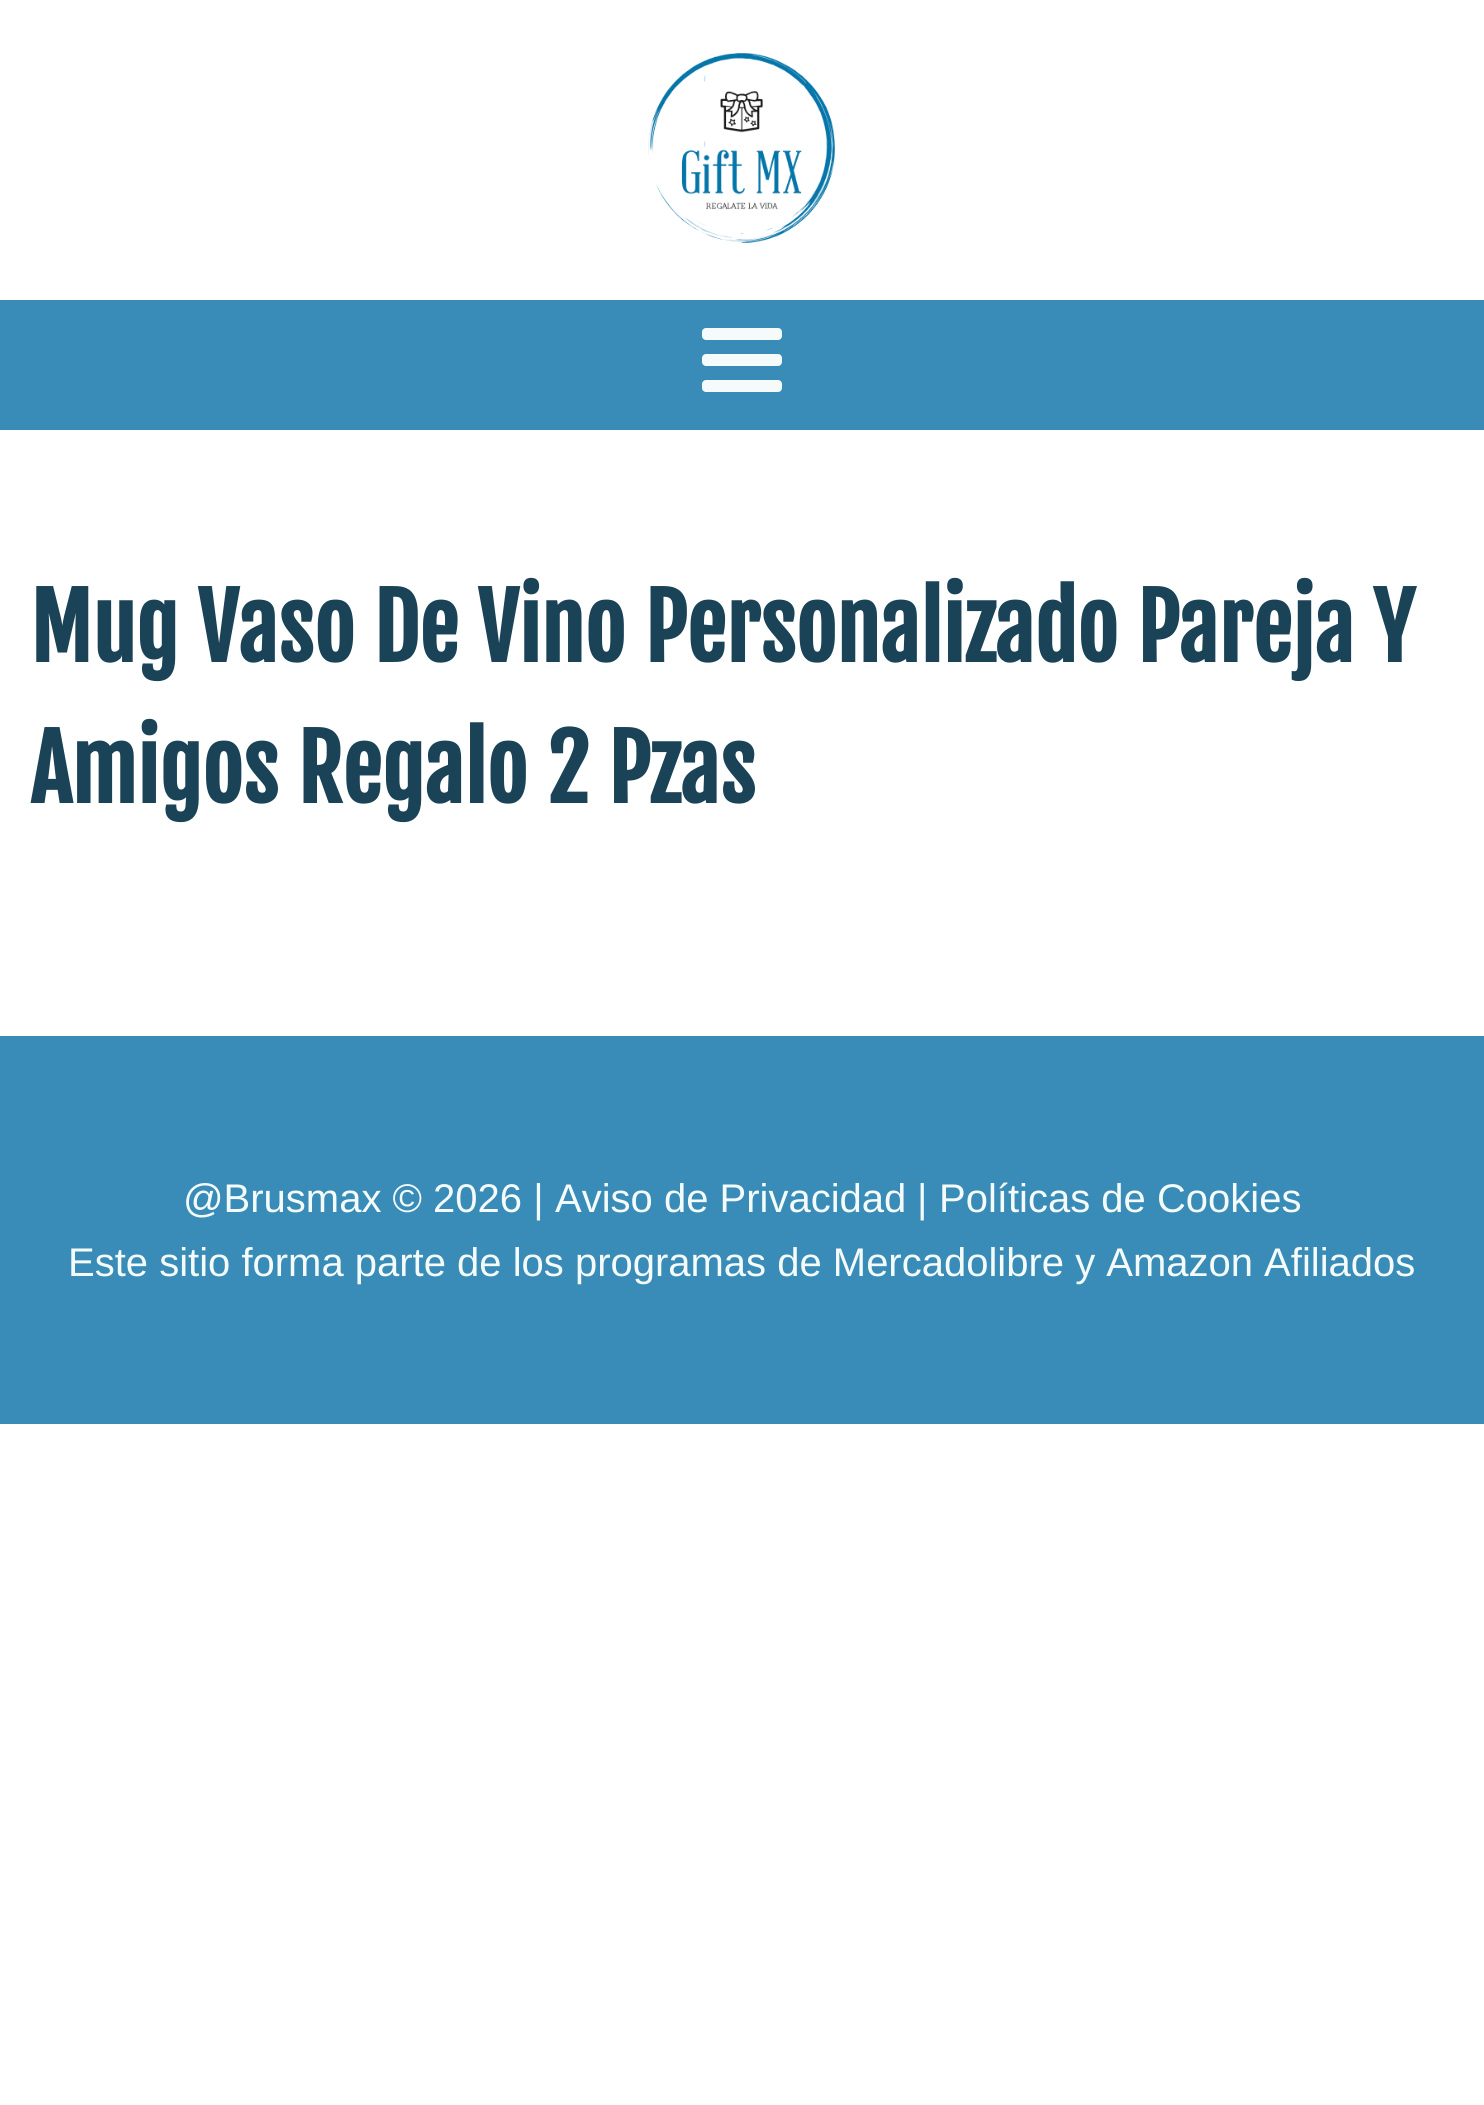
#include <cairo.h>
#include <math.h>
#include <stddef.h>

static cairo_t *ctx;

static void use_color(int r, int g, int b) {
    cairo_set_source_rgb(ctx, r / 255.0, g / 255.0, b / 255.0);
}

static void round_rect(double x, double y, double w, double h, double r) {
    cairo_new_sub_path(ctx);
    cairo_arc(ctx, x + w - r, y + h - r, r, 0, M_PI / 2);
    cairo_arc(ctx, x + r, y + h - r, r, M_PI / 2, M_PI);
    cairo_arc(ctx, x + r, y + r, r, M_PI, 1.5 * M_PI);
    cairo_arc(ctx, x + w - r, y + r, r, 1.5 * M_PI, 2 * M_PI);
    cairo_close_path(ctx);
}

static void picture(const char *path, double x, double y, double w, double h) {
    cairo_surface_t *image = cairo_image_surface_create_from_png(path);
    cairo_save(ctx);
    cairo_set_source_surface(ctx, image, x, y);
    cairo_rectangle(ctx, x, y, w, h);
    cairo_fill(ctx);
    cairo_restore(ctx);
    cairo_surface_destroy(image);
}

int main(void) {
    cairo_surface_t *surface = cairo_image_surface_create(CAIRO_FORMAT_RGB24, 1484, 2105);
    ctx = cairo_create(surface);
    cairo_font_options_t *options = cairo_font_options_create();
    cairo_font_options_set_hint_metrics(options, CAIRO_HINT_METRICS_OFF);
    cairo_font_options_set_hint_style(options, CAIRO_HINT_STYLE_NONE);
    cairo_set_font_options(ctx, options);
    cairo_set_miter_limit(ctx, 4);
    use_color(255, 255, 255);
    cairo_paint(ctx);
    picture("img1.png", 648, 53, 187, 190);
    use_color(56, 140, 183);
    cairo_rectangle(ctx, 0, 300, 1484, 130);
    cairo_fill(ctx);
    use_color(244, 251, 250);
    round_rect(702, 328, 80, 12, 4);
    cairo_fill(ctx);
    round_rect(702, 354, 80, 12, 4);
    cairo_fill(ctx);
    round_rect(702, 380, 80, 12, 4);
    cairo_fill(ctx);
    cairo_select_font_face(ctx, "Fjalla One", CAIRO_FONT_SLANT_NORMAL, CAIRO_FONT_WEIGHT_BOLD);
    cairo_set_font_size(ctx, 88);
    use_color(27, 67, 88);
    cairo_move_to(ctx, 30, 662);
    cairo_show_text(ctx, "Mug Vaso De Vino Personalizado Pareja Y");
    cairo_move_to(ctx, 30, 803);
    cairo_show_text(ctx, "Amigos Regalo 2 Pzas");
    use_color(56, 140, 183);
    cairo_rectangle(ctx, 0, 1036, 1484, 388);
    cairo_fill(ctx);
    cairo_select_font_face(ctx, "Liberation Sans", CAIRO_FONT_SLANT_NORMAL, CAIRO_FONT_WEIGHT_NORMAL);
    cairo_set_font_size(ctx, 40);
    use_color(244, 251, 250);
    cairo_move_to(ctx, 183, 1212);
    cairo_show_text(ctx, "@Brusmax © 2026 |");
    cairo_move_to(ctx, 555, 1212);
    cairo_show_text(ctx, "Aviso de Privacidad");
    cairo_move_to(ctx, 917, 1212);
    cairo_show_text(ctx, "|");
    cairo_move_to(ctx, 939, 1212);
    cairo_show_text(ctx, "Políticas de Cookies");
    cairo_move_to(ctx, 68, 1276);
    cairo_show_text(ctx, "Este sitio forma parte de los programas de Mercadolibre y Amazon Afiliados");
    cairo_surface_write_to_png(surface, "result.png");
    cairo_font_options_destroy(options);
    cairo_destroy(ctx);
    cairo_surface_destroy(surface);
    return 0;
}
